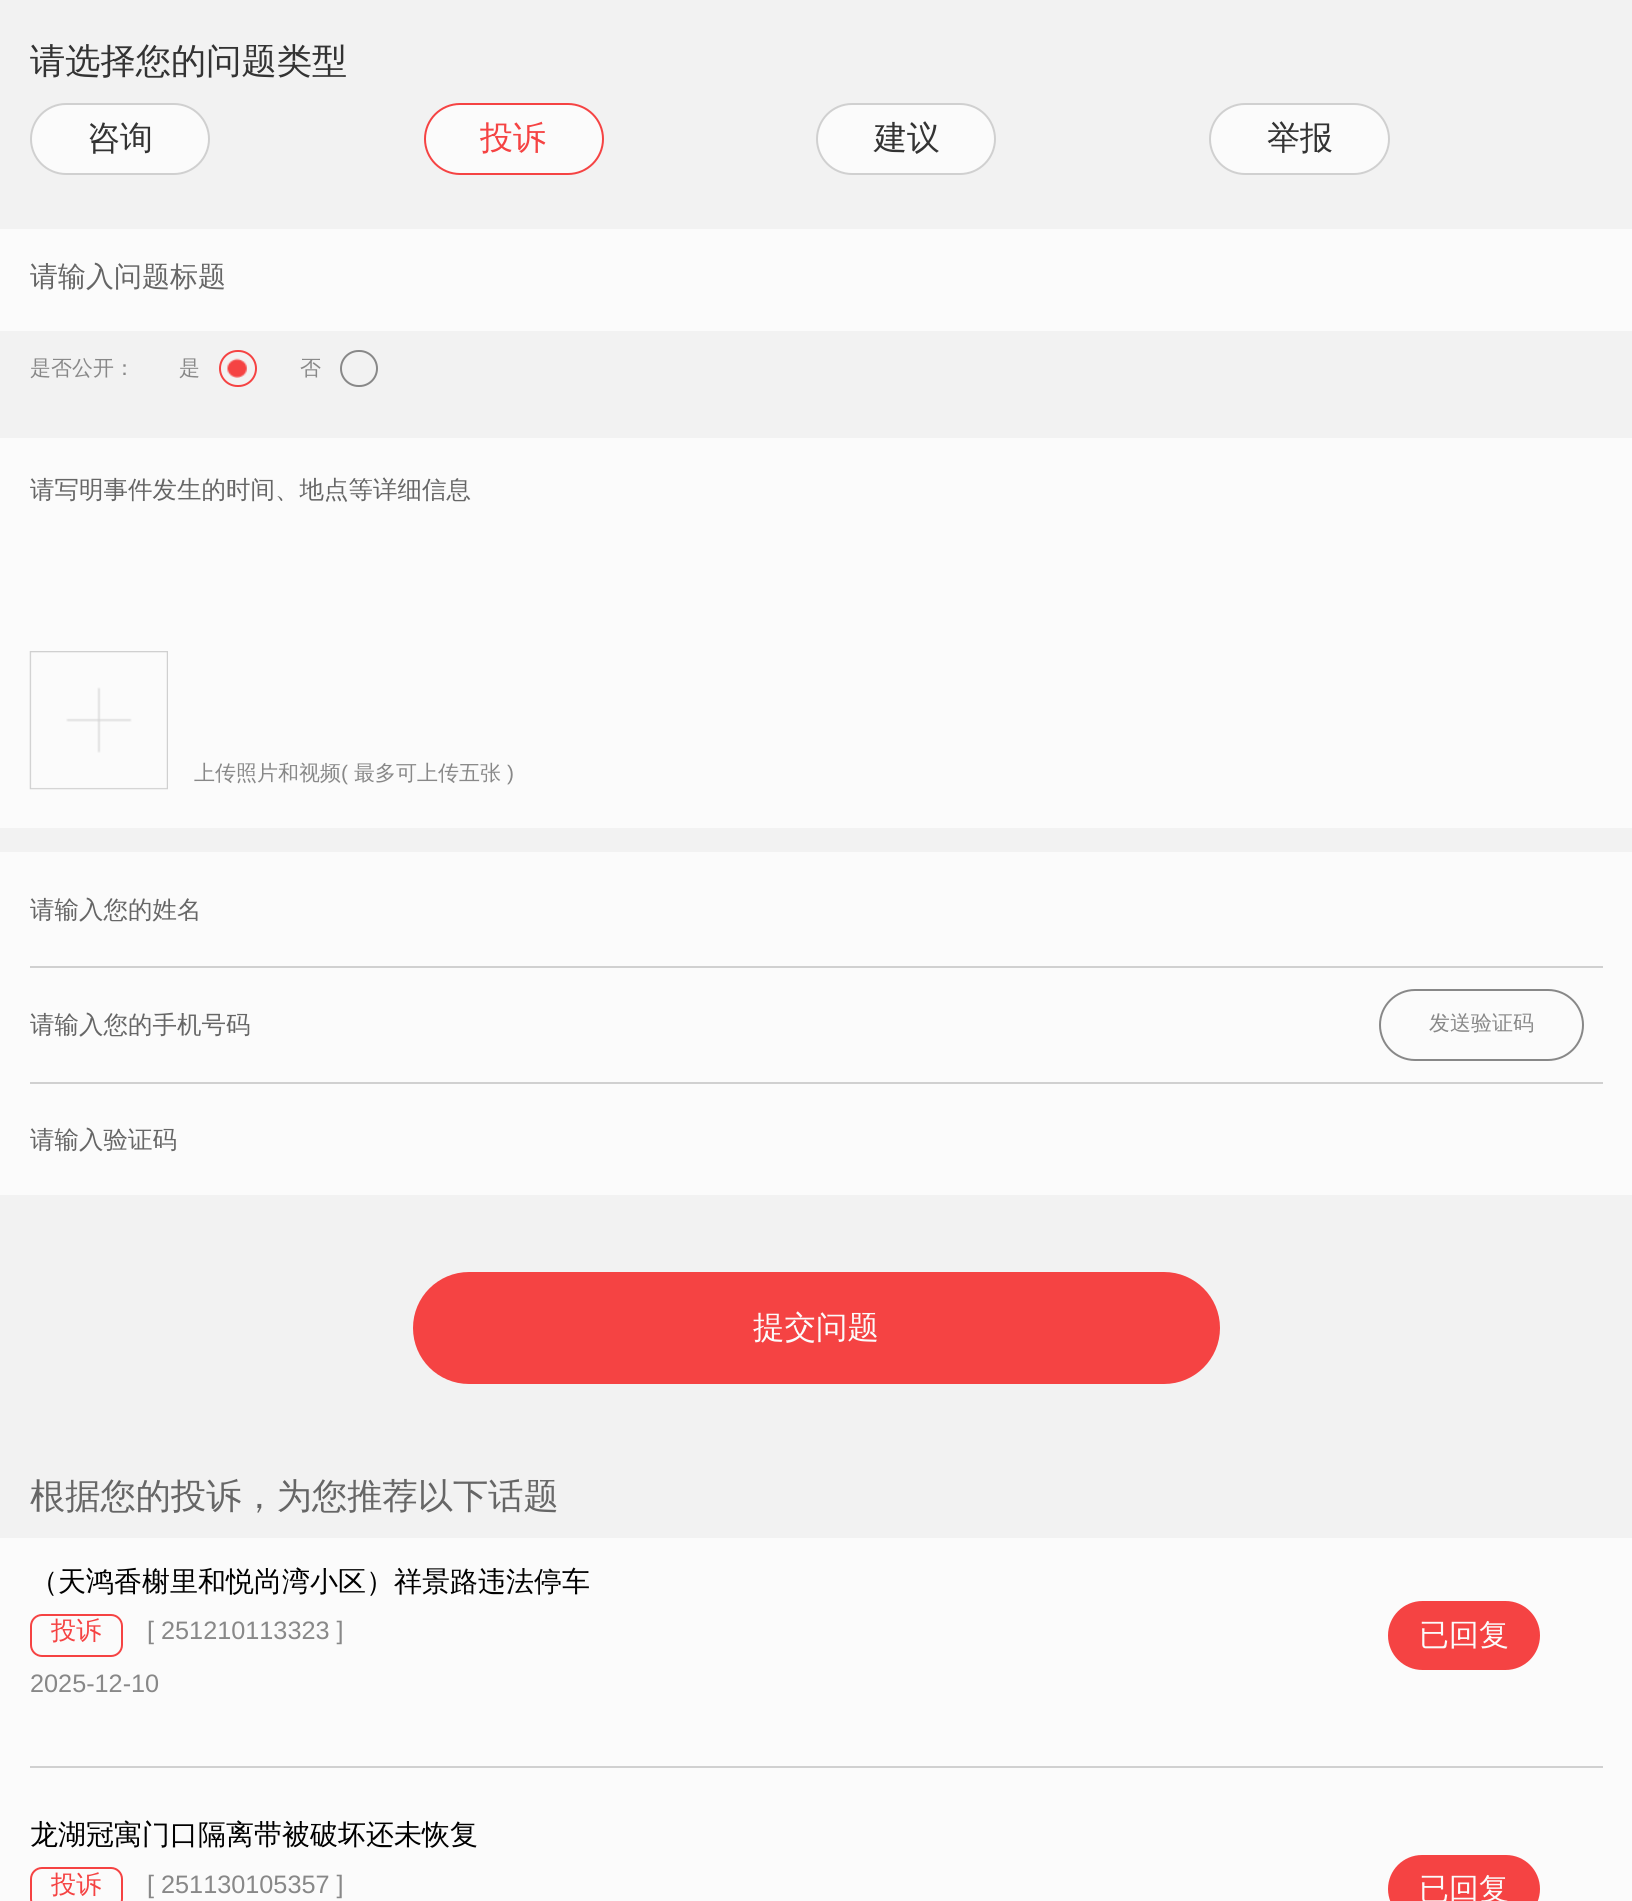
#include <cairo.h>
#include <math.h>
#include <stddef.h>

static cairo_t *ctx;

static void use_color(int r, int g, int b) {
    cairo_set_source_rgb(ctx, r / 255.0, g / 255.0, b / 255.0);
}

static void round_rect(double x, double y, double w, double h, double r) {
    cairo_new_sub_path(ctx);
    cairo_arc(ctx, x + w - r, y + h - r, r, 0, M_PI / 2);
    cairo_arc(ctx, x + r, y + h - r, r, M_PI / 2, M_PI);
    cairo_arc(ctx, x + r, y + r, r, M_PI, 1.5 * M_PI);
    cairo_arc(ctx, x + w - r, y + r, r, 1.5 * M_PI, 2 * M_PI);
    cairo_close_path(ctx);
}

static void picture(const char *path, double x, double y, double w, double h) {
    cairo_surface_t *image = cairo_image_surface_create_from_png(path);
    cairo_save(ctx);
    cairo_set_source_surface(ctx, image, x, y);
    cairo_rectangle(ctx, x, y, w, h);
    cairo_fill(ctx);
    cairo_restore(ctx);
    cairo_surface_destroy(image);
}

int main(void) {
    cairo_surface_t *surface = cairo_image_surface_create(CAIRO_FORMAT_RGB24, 1632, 1901);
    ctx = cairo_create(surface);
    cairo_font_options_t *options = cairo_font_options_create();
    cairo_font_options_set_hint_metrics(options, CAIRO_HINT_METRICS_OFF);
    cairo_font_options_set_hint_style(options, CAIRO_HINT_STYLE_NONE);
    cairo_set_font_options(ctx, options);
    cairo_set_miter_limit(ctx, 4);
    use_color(242, 242, 242);
    cairo_paint(ctx);
    cairo_select_font_face(ctx, "WenQuanYi Zen Hei Medium", CAIRO_FONT_SLANT_NORMAL, CAIRO_FONT_WEIGHT_NORMAL);
    cairo_set_font_size(ctx, 35.25);
    use_color(51, 51, 51);
    cairo_move_to(ctx, 30, 73);
    cairo_show_text(ctx, "请选择您的问题类型");
    use_color(251, 251, 251);
    round_rect(31, 104, 178, 70, 35);
    cairo_fill_preserve(ctx);
    use_color(208, 208, 208);
    cairo_stroke(ctx);
    cairo_set_font_size(ctx, 33);
    use_color(51, 51, 51);
    cairo_move_to(ctx, 87, 149);
    cairo_show_text(ctx, "咨询");
    use_color(251, 251, 251);
    round_rect(425, 104, 178, 70, 35);
    cairo_fill_preserve(ctx);
    use_color(245, 67, 67);
    cairo_stroke(ctx);
    cairo_move_to(ctx, 480, 149);
    cairo_show_text(ctx, "投诉");
    use_color(251, 251, 251);
    round_rect(817, 104, 178, 70, 35);
    cairo_fill_preserve(ctx);
    use_color(208, 208, 208);
    cairo_stroke(ctx);
    use_color(51, 51, 51);
    cairo_move_to(ctx, 874, 149);
    cairo_show_text(ctx, "建议");
    use_color(251, 251, 251);
    round_rect(1210, 104, 179, 70, 35);
    cairo_fill_preserve(ctx);
    use_color(208, 208, 208);
    cairo_stroke(ctx);
    use_color(51, 51, 51);
    cairo_move_to(ctx, 1267, 149);
    cairo_show_text(ctx, "举报");
    use_color(251, 251, 251);
    cairo_rectangle(ctx, 0, 229, 1632, 102);
    cairo_fill(ctx);
    cairo_set_font_size(ctx, 28);
    use_color(102, 102, 102);
    cairo_move_to(ctx, 30, 286);
    cairo_show_text(ctx, "请输入问题标题");
    cairo_set_font_size(ctx, 21);
    use_color(136, 136, 136);
    cairo_move_to(ctx, 30, 375);
    cairo_show_text(ctx, "是否公开：");
    cairo_move_to(ctx, 179, 375);
    cairo_show_text(ctx, "是");
    picture("img1.png", 227, 358, 20, 20);
    round_rect(220, 351, 36, 35, 17.5);
    use_color(245, 67, 67);
    cairo_stroke(ctx);
    use_color(136, 136, 136);
    cairo_move_to(ctx, 300, 375);
    cairo_show_text(ctx, "否");
    round_rect(341, 351, 36, 35, 17.5);
    cairo_stroke(ctx);
    use_color(251, 251, 251);
    cairo_rectangle(ctx, 0, 438, 1632, 390);
    cairo_fill(ctx);
    cairo_set_font_size(ctx, 24.5);
    use_color(102, 102, 102);
    cairo_move_to(ctx, 30, 498);
    cairo_show_text(ctx, "请写明事件发生的时间、地点等详细信息");
    picture("img2.png", 29, 651, 139, 139);
    cairo_set_font_size(ctx, 21);
    use_color(136, 136, 136);
    cairo_move_to(ctx, 194, 780);
    cairo_show_text(ctx, "上传照片和视频");
    cairo_select_font_face(ctx, "Liberation Sans", CAIRO_FONT_SLANT_NORMAL, CAIRO_FONT_WEIGHT_NORMAL);
    cairo_move_to(ctx, 341, 780);
    cairo_show_text(ctx, "(");
    cairo_select_font_face(ctx, "WenQuanYi Zen Hei Medium", CAIRO_FONT_SLANT_NORMAL, CAIRO_FONT_WEIGHT_NORMAL);
    cairo_move_to(ctx, 354, 780);
    cairo_show_text(ctx, "最多可上传五张");
    cairo_select_font_face(ctx, "Liberation Sans", CAIRO_FONT_SLANT_NORMAL, CAIRO_FONT_WEIGHT_NORMAL);
    cairo_move_to(ctx, 507, 780);
    cairo_show_text(ctx, ")");
    use_color(251, 251, 251);
    cairo_rectangle(ctx, 0, 852, 1632, 343);
    cairo_fill(ctx);
    use_color(208, 208, 208);
    cairo_rectangle(ctx, 30, 966, 1573, 2);
    cairo_fill(ctx);
    cairo_select_font_face(ctx, "WenQuanYi Zen Hei Medium", CAIRO_FONT_SLANT_NORMAL, CAIRO_FONT_WEIGHT_NORMAL);
    cairo_set_font_size(ctx, 24.5);
    use_color(102, 102, 102);
    cairo_move_to(ctx, 30, 918);
    cairo_show_text(ctx, "请输入您的姓名");
    use_color(208, 208, 208);
    cairo_rectangle(ctx, 30, 1082, 1573, 2);
    cairo_fill(ctx);
    use_color(102, 102, 102);
    cairo_move_to(ctx, 30, 1033);
    cairo_show_text(ctx, "请输入您的手机号码");
    round_rect(1380, 990, 203, 70, 35);
    use_color(136, 136, 136);
    cairo_stroke(ctx);
    cairo_set_font_size(ctx, 21);
    cairo_move_to(ctx, 1429, 1030);
    cairo_show_text(ctx, "发送验证码");
    cairo_set_font_size(ctx, 24.5);
    use_color(102, 102, 102);
    cairo_move_to(ctx, 30, 1148);
    cairo_show_text(ctx, "请输入验证码");
    use_color(245, 67, 67);
    round_rect(413, 1272, 807, 112, 56);
    cairo_fill(ctx);
    cairo_set_font_size(ctx, 31.5);
    use_color(251, 251, 251);
    cairo_move_to(ctx, 753, 1338);
    cairo_show_text(ctx, "提交问题");
    cairo_set_font_size(ctx, 35.25);
    use_color(102, 102, 102);
    cairo_move_to(ctx, 30, 1508);
    cairo_show_text(ctx, "根据您的投诉，为您推荐以下话题");
    use_color(251, 251, 251);
    cairo_rectangle(ctx, 0, 1538, 1632, 363);
    cairo_fill(ctx);
    use_color(208, 208, 208);
    cairo_rectangle(ctx, 30, 1766, 1573, 2);
    cairo_fill(ctx);
    cairo_set_font_size(ctx, 28);
    use_color(0, 0, 0);
    cairo_move_to(ctx, 30, 1591);
    cairo_show_text(ctx, "（天鸿香榭里和悦尚湾小区）祥景路违法停车");
    round_rect(31, 1615, 91, 41, 11);
    use_color(245, 67, 67);
    cairo_stroke(ctx);
    cairo_set_font_size(ctx, 25.25);
    cairo_move_to(ctx, 51, 1639);
    cairo_show_text(ctx, "投诉");
    cairo_select_font_face(ctx, "Liberation Sans", CAIRO_FONT_SLANT_NORMAL, CAIRO_FONT_WEIGHT_NORMAL);
    use_color(136, 136, 136);
    cairo_move_to(ctx, 147, 1639);
    cairo_show_text(ctx, "[ 251210113323 ]");
    use_color(245, 67, 67);
    round_rect(1388, 1601, 152, 69, 34.5);
    cairo_fill(ctx);
    cairo_select_font_face(ctx, "WenQuanYi Zen Hei Medium", CAIRO_FONT_SLANT_NORMAL, CAIRO_FONT_WEIGHT_NORMAL);
    cairo_set_font_size(ctx, 30);
    use_color(251, 251, 251);
    cairo_move_to(ctx, 1419, 1645);
    cairo_show_text(ctx, "已回复");
    cairo_select_font_face(ctx, "Liberation Sans", CAIRO_FONT_SLANT_NORMAL, CAIRO_FONT_WEIGHT_NORMAL);
    cairo_set_font_size(ctx, 25.25);
    use_color(136, 136, 136);
    cairo_move_to(ctx, 30, 1692);
    cairo_show_text(ctx, "2025-12-10");
    cairo_select_font_face(ctx, "WenQuanYi Zen Hei Medium", CAIRO_FONT_SLANT_NORMAL, CAIRO_FONT_WEIGHT_NORMAL);
    cairo_set_font_size(ctx, 28);
    use_color(0, 0, 0);
    cairo_move_to(ctx, 30, 1844);
    cairo_show_text(ctx, "龙湖冠寓门口隔离带被破坏还未恢复");
    round_rect(31, 1868, 91, 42, 11);
    use_color(245, 67, 67);
    cairo_stroke(ctx);
    cairo_set_font_size(ctx, 25.25);
    cairo_move_to(ctx, 51, 1893);
    cairo_show_text(ctx, "投诉");
    cairo_select_font_face(ctx, "Liberation Sans", CAIRO_FONT_SLANT_NORMAL, CAIRO_FONT_WEIGHT_NORMAL);
    use_color(136, 136, 136);
    cairo_move_to(ctx, 147, 1893);
    cairo_show_text(ctx, "[ 251130105357 ]");
    use_color(245, 67, 67);
    round_rect(1388, 1855, 152, 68, 34);
    cairo_fill(ctx);
    cairo_select_font_face(ctx, "WenQuanYi Zen Hei Medium", CAIRO_FONT_SLANT_NORMAL, CAIRO_FONT_WEIGHT_NORMAL);
    cairo_set_font_size(ctx, 30);
    use_color(251, 251, 251);
    cairo_move_to(ctx, 1419, 1899);
    cairo_show_text(ctx, "已回复");
    cairo_surface_write_to_png(surface, "result.png");
    cairo_font_options_destroy(options);
    cairo_destroy(ctx);
    cairo_surface_destroy(surface);
    return 0;
}
